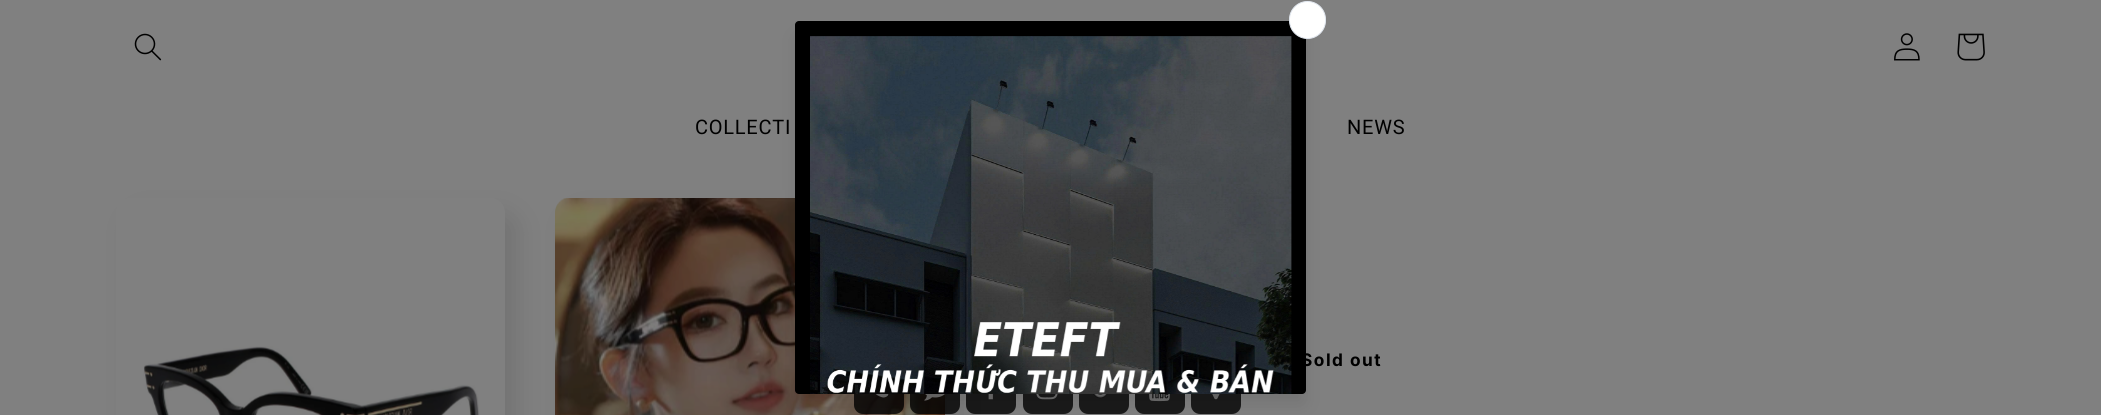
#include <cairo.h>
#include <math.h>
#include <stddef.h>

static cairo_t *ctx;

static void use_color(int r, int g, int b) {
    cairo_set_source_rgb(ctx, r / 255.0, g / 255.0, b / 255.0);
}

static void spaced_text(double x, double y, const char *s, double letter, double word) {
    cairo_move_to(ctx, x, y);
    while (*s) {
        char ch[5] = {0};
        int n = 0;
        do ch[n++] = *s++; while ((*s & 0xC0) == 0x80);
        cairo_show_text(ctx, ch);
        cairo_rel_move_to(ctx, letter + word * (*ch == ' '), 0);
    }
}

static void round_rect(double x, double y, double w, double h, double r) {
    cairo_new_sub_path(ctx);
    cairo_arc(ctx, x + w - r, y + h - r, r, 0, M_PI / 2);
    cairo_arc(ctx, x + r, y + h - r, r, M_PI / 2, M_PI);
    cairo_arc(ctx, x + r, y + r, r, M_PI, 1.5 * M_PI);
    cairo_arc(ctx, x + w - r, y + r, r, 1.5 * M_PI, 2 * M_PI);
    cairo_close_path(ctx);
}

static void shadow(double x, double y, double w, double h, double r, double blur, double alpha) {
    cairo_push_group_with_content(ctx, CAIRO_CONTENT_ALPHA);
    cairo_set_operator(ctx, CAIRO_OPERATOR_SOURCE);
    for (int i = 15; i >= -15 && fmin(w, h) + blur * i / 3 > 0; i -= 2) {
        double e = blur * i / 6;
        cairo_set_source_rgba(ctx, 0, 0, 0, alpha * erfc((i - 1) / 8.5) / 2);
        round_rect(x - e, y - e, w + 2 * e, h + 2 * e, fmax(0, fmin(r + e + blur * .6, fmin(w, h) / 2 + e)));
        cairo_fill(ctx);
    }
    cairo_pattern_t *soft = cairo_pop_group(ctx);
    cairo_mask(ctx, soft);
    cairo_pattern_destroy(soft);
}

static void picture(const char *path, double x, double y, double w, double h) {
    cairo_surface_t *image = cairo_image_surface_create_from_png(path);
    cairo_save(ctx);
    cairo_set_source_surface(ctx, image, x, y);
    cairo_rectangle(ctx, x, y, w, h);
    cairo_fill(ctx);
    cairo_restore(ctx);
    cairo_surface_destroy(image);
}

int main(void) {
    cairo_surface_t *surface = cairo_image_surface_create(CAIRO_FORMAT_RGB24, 2101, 415);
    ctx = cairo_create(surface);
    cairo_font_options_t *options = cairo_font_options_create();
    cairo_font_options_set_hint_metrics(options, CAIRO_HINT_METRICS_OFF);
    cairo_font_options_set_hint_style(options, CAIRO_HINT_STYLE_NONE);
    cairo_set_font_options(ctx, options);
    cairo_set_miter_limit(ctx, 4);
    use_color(128, 128, 128);
    cairo_paint(ctx);
    cairo_save(ctx);
    cairo_set_fill_rule(ctx, CAIRO_FILL_RULE_EVEN_ODD);
    cairo_new_path(ctx);
    cairo_move_to(ctx, 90, 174);
    cairo_line_to(ctx, 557, 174);
    cairo_line_to(ctx, 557, 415);
    cairo_line_to(ctx, 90, 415);
    cairo_close_path(ctx);
    cairo_move_to(ctx, 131, 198);
    cairo_line_to(ctx, 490, 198);
    cairo_curve_to(ctx, 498.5, 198, 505, 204.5, 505, 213);
    cairo_line_to(ctx, 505, 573);
    cairo_curve_to(ctx, 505, 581.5, 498.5, 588, 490, 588);
    cairo_line_to(ctx, 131, 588);
    cairo_curve_to(ctx, 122.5, 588, 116, 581.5, 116, 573);
    cairo_line_to(ctx, 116, 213);
    cairo_curve_to(ctx, 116, 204.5, 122.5, 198, 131, 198);
    cairo_close_path(ctx);
    cairo_clip(ctx);
    use_color(0, 0, 0);
    shadow(129, 213, 389, 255, 15, 12.5, 0.1);
    cairo_restore(ctx);
    use_color(0, 0, 0);
    shadow(568, 213, 390, 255, 15, 12.5, 0.1);
    picture("img6.png", 555, 198, 390, 217);
    cairo_set_source_rgba(ctx, 0, 0, 0, 0.8);
    round_rect(854, 364, 50, 50, 9);
    cairo_fill(ctx);
    picture("img7.png", 875, 394, 14, 4);
    round_rect(910, 364, 50, 50, 9);
    cairo_fill(ctx);
    picture("img8.png", 924, 394, 21, 7);
    round_rect(966, 364, 50, 50, 9);
    cairo_fill(ctx);
    picture("img9.png", 988, 394, 5, 6);
    round_rect(1023, 364, 50, 50, 9);
    cairo_fill(ctx);
    picture("img10.png", 1036, 394, 22, 6);
    round_rect(1079, 364, 50, 50, 9);
    cairo_fill(ctx);
    picture("img11.png", 1092, 394, 17, 5);
    round_rect(1135, 364, 50, 50, 9);
    cairo_fill(ctx);
    picture("img12.png", 1149, 394, 21, 8);
    round_rect(1191, 364, 50, 50, 9);
    cairo_fill(ctx);
    picture("img13.png", 1212, 394, 8, 6);
    use_color(0, 0, 0);
    shadow(799, 38, 504, 365, 0.5, 9.5, 0.1);
    cairo_save(ctx);
    cairo_rectangle(ctx, 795, 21, 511, 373);
    cairo_clip(ctx);
    shadow(799, 25, 504, 365, 0.5, 12.5, 0.12);
    cairo_restore(ctx);
    use_color(0, 0, 0);
    round_rect(795, 21, 511, 373, 4);
    cairo_fill(ctx);
    picture("img1.png", 810, 36, 482, 358);
    use_color(255, 255, 255);
    round_rect(1289.5, 1.5, 36, 37, 18);
    cairo_fill_preserve(ctx);
    use_color(226, 232, 240);
    cairo_set_line_width(ctx, 1);
    cairo_stroke(ctx);
    picture("img2.png", 134, 33, 28, 28);
    picture("img3.png", 1894, 33, 26, 28);
    picture("img4.png", 1957, 33, 28, 28);
    cairo_select_font_face(ctx, "Roboto", CAIRO_FONT_SLANT_NORMAL, CAIRO_FONT_WEIGHT_NORMAL);
    cairo_set_font_size(ctx, 20);
    use_color(0, 0, 0);
    spaced_text(695, 134, "COLLECTI", 0.75, 0);
    spaced_text(1347, 134, "NEWS", 0.75, 0);
    picture("img5.png", 143, 346, 337, 69);
    cairo_select_font_face(ctx, "Inter", CAIRO_FONT_SLANT_NORMAL, CAIRO_FONT_WEIGHT_BOLD);
    cairo_set_font_size(ctx, 17.25);
    spaced_text(1301, 366, "Sold out", 1.5, 0);
    cairo_surface_write_to_png(surface, "result.png");
    cairo_font_options_destroy(options);
    cairo_destroy(ctx);
    cairo_surface_destroy(surface);
    return 0;
}
